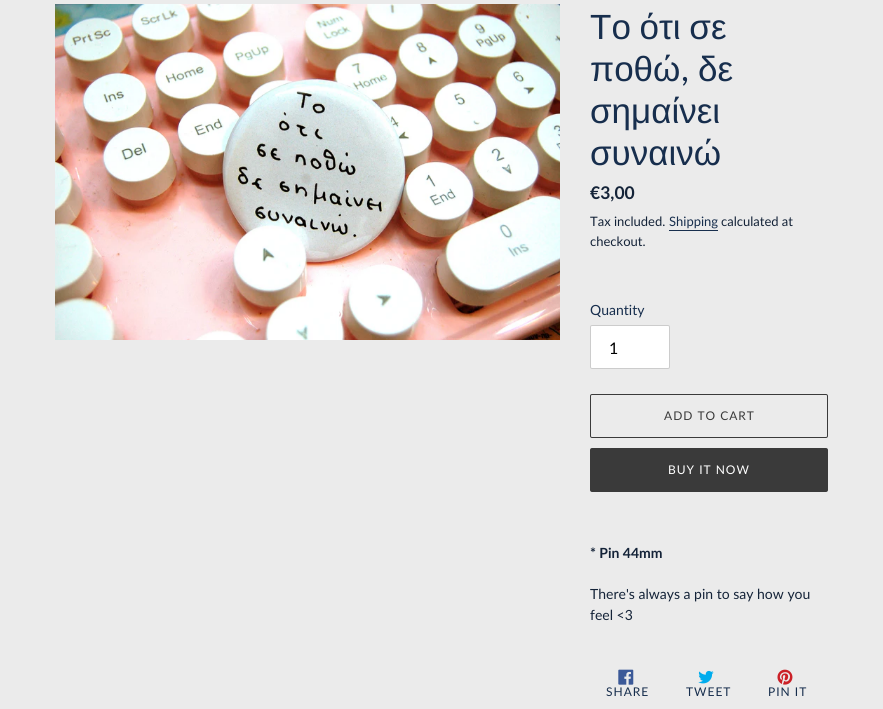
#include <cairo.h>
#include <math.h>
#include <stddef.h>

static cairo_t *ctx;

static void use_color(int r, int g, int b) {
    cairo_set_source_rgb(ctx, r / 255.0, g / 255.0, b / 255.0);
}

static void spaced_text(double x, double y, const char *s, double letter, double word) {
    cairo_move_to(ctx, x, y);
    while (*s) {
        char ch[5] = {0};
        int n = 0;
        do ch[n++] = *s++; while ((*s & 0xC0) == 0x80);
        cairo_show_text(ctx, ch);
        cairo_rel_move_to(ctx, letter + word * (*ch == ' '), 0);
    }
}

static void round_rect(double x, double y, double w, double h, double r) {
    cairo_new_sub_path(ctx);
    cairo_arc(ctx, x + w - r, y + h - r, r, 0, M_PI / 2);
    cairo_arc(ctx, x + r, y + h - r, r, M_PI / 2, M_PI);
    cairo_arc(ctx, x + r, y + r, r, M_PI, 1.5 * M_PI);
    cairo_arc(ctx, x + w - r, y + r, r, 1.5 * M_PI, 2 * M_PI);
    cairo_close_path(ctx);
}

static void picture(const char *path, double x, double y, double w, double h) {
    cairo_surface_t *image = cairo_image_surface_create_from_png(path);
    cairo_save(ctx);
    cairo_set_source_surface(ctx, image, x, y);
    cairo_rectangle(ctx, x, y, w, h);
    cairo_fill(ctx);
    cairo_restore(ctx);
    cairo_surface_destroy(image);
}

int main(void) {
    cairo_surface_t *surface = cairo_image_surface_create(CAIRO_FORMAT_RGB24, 883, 709);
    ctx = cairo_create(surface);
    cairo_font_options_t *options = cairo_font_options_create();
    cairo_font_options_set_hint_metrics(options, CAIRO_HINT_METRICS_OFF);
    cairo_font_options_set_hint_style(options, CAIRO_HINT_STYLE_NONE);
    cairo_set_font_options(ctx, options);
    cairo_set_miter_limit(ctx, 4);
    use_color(235, 235, 235);
    cairo_paint(ctx);
    picture("img1.png", 55, 4, 505, 336);
    cairo_select_font_face(ctx, "Liberation Sans", CAIRO_FONT_SLANT_NORMAL, CAIRO_FONT_WEIGHT_NORMAL);
    cairo_set_font_size(ctx, 35);
    use_color(23, 46, 77);
    spaced_text(590, 39, "Το ότι σε", 0, -1);
    cairo_move_to(ctx, 590, 81);
    cairo_show_text(ctx, "ποθώ");
    cairo_select_font_face(ctx, "Lato", CAIRO_FONT_SLANT_NORMAL, CAIRO_FONT_WEIGHT_NORMAL);
    cairo_move_to(ctx, 681, 81);
    cairo_show_text(ctx, ",");
    cairo_select_font_face(ctx, "Liberation Sans", CAIRO_FONT_SLANT_NORMAL, CAIRO_FONT_WEIGHT_NORMAL);
    cairo_move_to(ctx, 698, 81);
    cairo_show_text(ctx, "δε");
    cairo_move_to(ctx, 590, 123);
    cairo_show_text(ctx, "σημαίνει");
    cairo_move_to(ctx, 590, 165);
    cairo_show_text(ctx, "συναινώ");
    cairo_select_font_face(ctx, "Lato", CAIRO_FONT_SLANT_NORMAL, CAIRO_FONT_WEIGHT_BOLD);
    cairo_set_font_size(ctx, 17.5);
    use_color(20, 35, 56);
    cairo_move_to(ctx, 590, 199);
    cairo_show_text(ctx, "€3,00");
    cairo_select_font_face(ctx, "Lato", CAIRO_FONT_SLANT_NORMAL, CAIRO_FONT_WEIGHT_NORMAL);
    cairo_set_font_size(ctx, 13);
    cairo_move_to(ctx, 590, 226);
    cairo_show_text(ctx, "Tax included.");
    use_color(23, 46, 77);
    cairo_move_to(ctx, 669, 226);
    cairo_show_text(ctx, "Shipping");
    cairo_rectangle(ctx, 669, 230, 49, 1);
    cairo_fill(ctx);
    use_color(20, 35, 56);
    cairo_move_to(ctx, 721, 226);
    cairo_show_text(ctx, "calculated at");
    cairo_move_to(ctx, 590, 246);
    cairo_show_text(ctx, "checkout.");
    cairo_set_font_size(ctx, 14);
    use_color(23, 46, 77);
    cairo_move_to(ctx, 590, 315);
    cairo_show_text(ctx, "Quantity");
    use_color(255, 255, 255);
    round_rect(590.5, 325.5, 79, 43, 1.5);
    cairo_fill_preserve(ctx);
    use_color(204, 204, 204);
    cairo_set_line_width(ctx, 1);
    cairo_stroke(ctx);
    cairo_set_font_size(ctx, 16);
    use_color(0, 0, 0);
    cairo_move_to(ctx, 609, 354);
    cairo_show_text(ctx, "1");
    round_rect(590.5, 394.5, 237, 43, 1.5);
    use_color(58, 58, 58);
    cairo_stroke(ctx);
    cairo_set_font_size(ctx, 12);
    spaced_text(664, 420, "ADD TO CART", 1, 0);
    round_rect(590, 448, 238, 44, 2);
    cairo_fill(ctx);
    use_color(255, 255, 255);
    spaced_text(668, 474, "BUY IT NOW", 1, 0);
    cairo_select_font_face(ctx, "Lato", CAIRO_FONT_SLANT_NORMAL, CAIRO_FONT_WEIGHT_BOLD);
    cairo_set_font_size(ctx, 14);
    use_color(20, 35, 56);
    cairo_move_to(ctx, 590, 558);
    cairo_show_text(ctx, "* Pin 44mm");
    cairo_select_font_face(ctx, "Lato", CAIRO_FONT_SLANT_NORMAL, CAIRO_FONT_WEIGHT_NORMAL);
    cairo_move_to(ctx, 590, 599);
    cairo_show_text(ctx, "There's always a pin to say how you");
    cairo_move_to(ctx, 590, 620);
    cairo_show_text(ctx, "feel <3");
    picture("img2.png", 618, 669, 16, 16);
    cairo_set_font_size(ctx, 12);
    use_color(23, 46, 77);
    spaced_text(606, 696, "SHARE", 1, 0);
    picture("img3.png", 698, 670, 16, 14);
    spaced_text(686, 696, "TWEET", 1, 0);
    picture("img4.png", 777, 669, 16, 16);
    spaced_text(768, 696, "PIN IT", 1, 0);
    cairo_surface_write_to_png(surface, "result.png");
    cairo_font_options_destroy(options);
    cairo_destroy(ctx);
    cairo_surface_destroy(surface);
    return 0;
}
